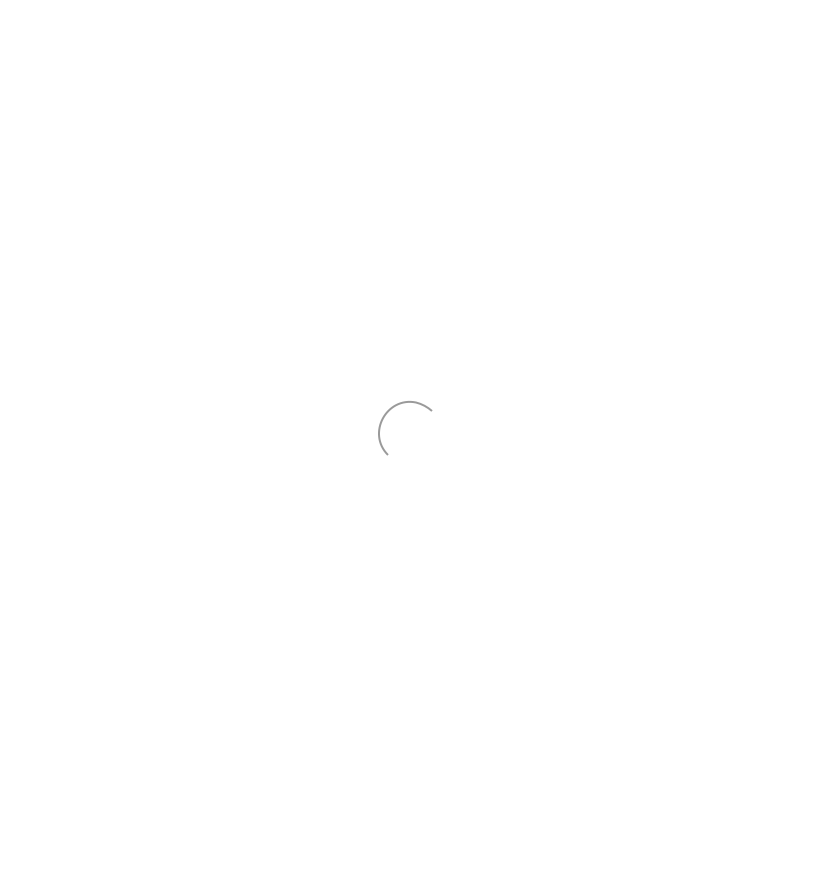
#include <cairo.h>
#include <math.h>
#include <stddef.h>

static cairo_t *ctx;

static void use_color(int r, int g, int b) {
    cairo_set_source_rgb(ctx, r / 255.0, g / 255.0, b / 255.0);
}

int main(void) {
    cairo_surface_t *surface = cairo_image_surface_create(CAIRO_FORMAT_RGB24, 816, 882);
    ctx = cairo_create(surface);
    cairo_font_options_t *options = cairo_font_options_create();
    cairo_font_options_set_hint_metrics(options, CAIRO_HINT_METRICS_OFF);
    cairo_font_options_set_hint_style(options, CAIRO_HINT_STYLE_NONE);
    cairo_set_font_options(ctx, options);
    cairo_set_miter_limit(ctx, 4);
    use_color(255, 255, 255);
    cairo_paint(ctx);
    cairo_new_path(ctx);
    cairo_move_to(ctx, 388, 455);
    cairo_curve_to(ctx, 366.5, 433.5, 386.5, 396.5, 416, 402.5);
    cairo_curve_to(ctx, 422, 404, 427.5, 407, 432, 411);
    use_color(154, 154, 154);
    cairo_stroke(ctx);
    cairo_surface_write_to_png(surface, "result.png");
    cairo_font_options_destroy(options);
    cairo_destroy(ctx);
    cairo_surface_destroy(surface);
    return 0;
}
